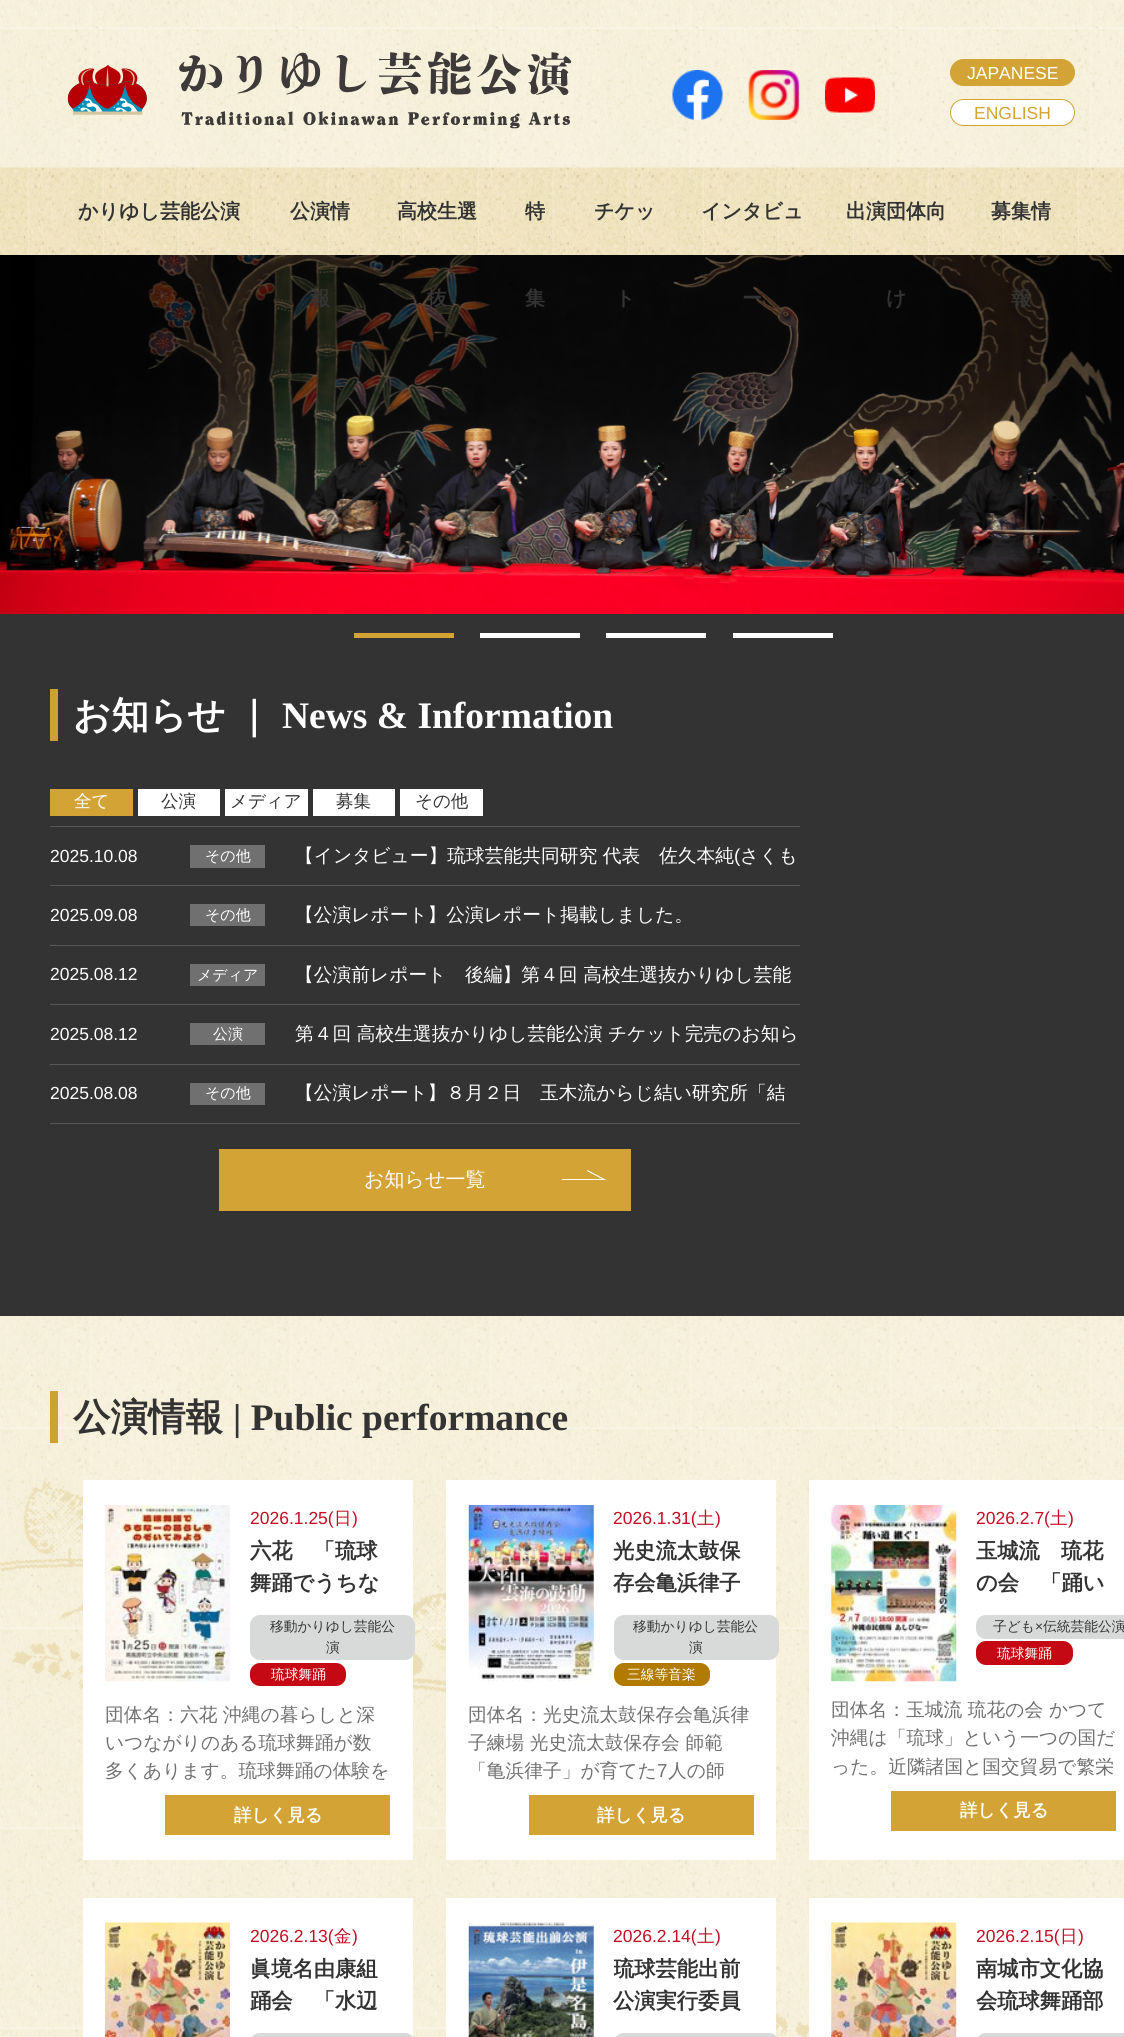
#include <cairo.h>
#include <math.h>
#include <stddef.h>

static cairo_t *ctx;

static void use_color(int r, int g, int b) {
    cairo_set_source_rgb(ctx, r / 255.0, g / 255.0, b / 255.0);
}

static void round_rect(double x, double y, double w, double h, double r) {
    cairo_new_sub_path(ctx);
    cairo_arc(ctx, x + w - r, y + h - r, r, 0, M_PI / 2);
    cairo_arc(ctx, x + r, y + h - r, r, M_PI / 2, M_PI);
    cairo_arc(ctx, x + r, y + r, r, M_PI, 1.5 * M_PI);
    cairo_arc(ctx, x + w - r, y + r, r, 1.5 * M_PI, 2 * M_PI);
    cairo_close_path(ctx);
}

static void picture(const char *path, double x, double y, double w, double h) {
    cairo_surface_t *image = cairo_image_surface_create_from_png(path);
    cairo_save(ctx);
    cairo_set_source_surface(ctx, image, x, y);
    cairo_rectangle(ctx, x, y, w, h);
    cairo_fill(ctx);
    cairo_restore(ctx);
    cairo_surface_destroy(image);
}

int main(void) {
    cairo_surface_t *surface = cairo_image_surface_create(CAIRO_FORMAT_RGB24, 1124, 2037);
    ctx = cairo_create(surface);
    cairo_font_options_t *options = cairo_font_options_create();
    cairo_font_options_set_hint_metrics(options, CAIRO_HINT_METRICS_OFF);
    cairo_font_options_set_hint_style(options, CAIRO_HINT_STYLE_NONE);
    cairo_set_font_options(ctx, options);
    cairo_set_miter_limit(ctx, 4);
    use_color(255, 255, 255);
    cairo_paint(ctx);
    picture("img1.png", 0, 0, 1124, 2037);
    picture("img2.png", 67, 51, 505, 78);
    picture("img3.png", 672, 70, 51, 50);
    picture("img4.png", 747, 70, 53, 50);
    picture("img5.png", 825, 77, 50, 36);
    use_color(212, 163, 53);
    round_rect(950.5, 59.5, 124, 26, 13);
    cairo_fill_preserve(ctx);
    cairo_set_line_width(ctx, 1);
    cairo_stroke(ctx);
    cairo_select_font_face(ctx, "Liberation Sans", CAIRO_FONT_SLANT_NORMAL, CAIRO_FONT_WEIGHT_NORMAL);
    cairo_set_font_size(ctx, 17.5);
    use_color(255, 255, 255);
    cairo_move_to(ctx, 967, 79);
    cairo_show_text(ctx, "JAPANESE");
    round_rect(950.5, 99.5, 124, 26, 13);
    cairo_fill_preserve(ctx);
    use_color(212, 163, 53);
    cairo_stroke(ctx);
    cairo_move_to(ctx, 974, 119);
    cairo_show_text(ctx, "ENGLISH");
    picture("img6.png", 0, 167, 1124, 88);
    cairo_select_font_face(ctx, "WenQuanYi Zen Hei", CAIRO_FONT_SLANT_NORMAL, CAIRO_FONT_WEIGHT_BOLD);
    cairo_set_font_size(ctx, 20);
    use_color(51, 51, 51);
    cairo_move_to(ctx, 78, 218);
    cairo_show_text(ctx, "かりゆし芸能公演");
    cairo_move_to(ctx, 290, 218);
    cairo_show_text(ctx, "公演情");
    picture("img8.png", 0, 255, 1124, 359);
    cairo_move_to(ctx, 310, 305);
    cairo_show_text(ctx, "報");
    cairo_move_to(ctx, 397, 218);
    cairo_show_text(ctx, "高校生選");
    cairo_move_to(ctx, 427, 305);
    cairo_show_text(ctx, "抜");
    cairo_move_to(ctx, 525, 218);
    cairo_show_text(ctx, "特");
    cairo_move_to(ctx, 525, 305);
    cairo_show_text(ctx, "集");
    cairo_move_to(ctx, 594, 218);
    cairo_show_text(ctx, "チケッ");
    cairo_move_to(ctx, 615, 305);
    cairo_show_text(ctx, "ト");
    cairo_move_to(ctx, 701, 218);
    cairo_show_text(ctx, "インタビュ");
    cairo_move_to(ctx, 742, 305);
    cairo_show_text(ctx, "ー");
    cairo_move_to(ctx, 846, 218);
    cairo_show_text(ctx, "出演団体向");
    cairo_move_to(ctx, 886, 305);
    cairo_show_text(ctx, "け");
    cairo_move_to(ctx, 991, 218);
    cairo_show_text(ctx, "募集情");
    cairo_move_to(ctx, 1011, 305);
    cairo_show_text(ctx, "報");
    picture("img7.png", 0, 1478, 809, 559);
    cairo_rectangle(ctx, 0, 614, 1124, 702);
    cairo_fill(ctx);
    use_color(212, 163, 53);
    cairo_rectangle(ctx, 354, 633, 100, 5);
    cairo_fill(ctx);
    use_color(255, 255, 255);
    cairo_rectangle(ctx, 480, 633, 100, 5);
    cairo_fill(ctx);
    cairo_rectangle(ctx, 606, 633, 100, 5);
    cairo_fill(ctx);
    cairo_rectangle(ctx, 733, 633, 100, 5);
    cairo_fill(ctx);
    use_color(209, 160, 53);
    cairo_rectangle(ctx, 50, 689, 8, 52);
    cairo_fill(ctx);
    cairo_set_font_size(ctx, 37.5);
    use_color(255, 255, 255);
    cairo_move_to(ctx, 73, 728);
    cairo_show_text(ctx, "お知らせ");
    cairo_move_to(ctx, 235, 728);
    cairo_show_text(ctx, "｜");
    cairo_select_font_face(ctx, "Liberation Serif", CAIRO_FONT_SLANT_NORMAL, CAIRO_FONT_WEIGHT_BOLD);
    cairo_move_to(ctx, 282, 728);
    cairo_show_text(ctx, "News & Information");
    use_color(212, 163, 53);
    cairo_rectangle(ctx, 50, 789, 83, 27);
    cairo_fill(ctx);
    cairo_select_font_face(ctx, "WenQuanYi Zen Hei Medium", CAIRO_FONT_SLANT_NORMAL, CAIRO_FONT_WEIGHT_NORMAL);
    cairo_set_font_size(ctx, 17.5);
    use_color(255, 255, 255);
    cairo_move_to(ctx, 74, 807);
    cairo_show_text(ctx, "全て");
    cairo_rectangle(ctx, 138, 789, 82, 27);
    cairo_fill(ctx);
    use_color(51, 51, 51);
    cairo_move_to(ctx, 161, 807);
    cairo_show_text(ctx, "公演");
    use_color(255, 255, 255);
    cairo_rectangle(ctx, 225, 789, 83, 27);
    cairo_fill(ctx);
    use_color(51, 51, 51);
    cairo_move_to(ctx, 230, 807);
    cairo_show_text(ctx, "メディア");
    use_color(255, 255, 255);
    cairo_rectangle(ctx, 313, 789, 82, 27);
    cairo_fill(ctx);
    use_color(51, 51, 51);
    cairo_move_to(ctx, 336, 807);
    cairo_show_text(ctx, "募集");
    use_color(255, 255, 255);
    cairo_rectangle(ctx, 400, 789, 83, 27);
    cairo_fill(ctx);
    use_color(51, 51, 51);
    cairo_move_to(ctx, 415, 807);
    cairo_show_text(ctx, "その他");
    use_color(89, 87, 87);
    cairo_rectangle(ctx, 50, 826, 750, 1);
    cairo_fill(ctx);
    cairo_rectangle(ctx, 50, 885, 750, 1);
    cairo_fill(ctx);
    cairo_select_font_face(ctx, "Liberation Sans", CAIRO_FONT_SLANT_NORMAL, CAIRO_FONT_WEIGHT_NORMAL);
    use_color(255, 255, 255);
    cairo_move_to(ctx, 50, 862);
    cairo_show_text(ctx, "2025.10.08");
    use_color(113, 112, 113);
    cairo_rectangle(ctx, 190, 845, 75, 23);
    cairo_fill(ctx);
    cairo_select_font_face(ctx, "WenQuanYi Zen Hei Medium", CAIRO_FONT_SLANT_NORMAL, CAIRO_FONT_WEIGHT_NORMAL);
    cairo_set_font_size(ctx, 15);
    use_color(255, 255, 255);
    cairo_move_to(ctx, 205, 861);
    cairo_show_text(ctx, "その他");
    cairo_set_font_size(ctx, 18.75);
    cairo_move_to(ctx, 295, 862);
    cairo_show_text(ctx, "【インタビュー】琉球芸能共同研究 代表　佐久本純");
    cairo_select_font_face(ctx, "Liberation Sans", CAIRO_FONT_SLANT_NORMAL, CAIRO_FONT_WEIGHT_NORMAL);
    cairo_move_to(ctx, 734, 862);
    cairo_show_text(ctx, "(");
    cairo_select_font_face(ctx, "WenQuanYi Zen Hei Medium", CAIRO_FONT_SLANT_NORMAL, CAIRO_FONT_WEIGHT_NORMAL);
    cairo_move_to(ctx, 740, 862);
    cairo_show_text(ctx, "さくも");
    use_color(89, 87, 87);
    cairo_rectangle(ctx, 50, 945, 750, 1);
    cairo_fill(ctx);
    cairo_select_font_face(ctx, "Liberation Sans", CAIRO_FONT_SLANT_NORMAL, CAIRO_FONT_WEIGHT_NORMAL);
    cairo_set_font_size(ctx, 17.5);
    use_color(255, 255, 255);
    cairo_move_to(ctx, 50, 921);
    cairo_show_text(ctx, "2025.09.08");
    use_color(113, 112, 113);
    cairo_rectangle(ctx, 190, 904, 75, 22);
    cairo_fill(ctx);
    cairo_select_font_face(ctx, "WenQuanYi Zen Hei Medium", CAIRO_FONT_SLANT_NORMAL, CAIRO_FONT_WEIGHT_NORMAL);
    cairo_set_font_size(ctx, 15);
    use_color(255, 255, 255);
    cairo_move_to(ctx, 205, 920);
    cairo_show_text(ctx, "その他");
    cairo_set_font_size(ctx, 18.75);
    cairo_move_to(ctx, 295, 921);
    cairo_show_text(ctx, "【公演レポート】公演レポート掲載しました。");
    use_color(89, 87, 87);
    cairo_rectangle(ctx, 50, 1004, 750, 1);
    cairo_fill(ctx);
    cairo_select_font_face(ctx, "Liberation Sans", CAIRO_FONT_SLANT_NORMAL, CAIRO_FONT_WEIGHT_NORMAL);
    cairo_set_font_size(ctx, 17.5);
    use_color(255, 255, 255);
    cairo_move_to(ctx, 50, 980);
    cairo_show_text(ctx, "2025.08.12");
    use_color(113, 112, 113);
    cairo_rectangle(ctx, 190, 964, 75, 22);
    cairo_fill(ctx);
    cairo_select_font_face(ctx, "WenQuanYi Zen Hei Medium", CAIRO_FONT_SLANT_NORMAL, CAIRO_FONT_WEIGHT_NORMAL);
    cairo_set_font_size(ctx, 15);
    use_color(255, 255, 255);
    cairo_move_to(ctx, 197, 980);
    cairo_show_text(ctx, "メディア");
    cairo_set_font_size(ctx, 18.75);
    cairo_move_to(ctx, 295, 981);
    cairo_show_text(ctx, "【公演前レポート　後編】第４回 高校生選抜かりゆし芸能");
    use_color(89, 87, 87);
    cairo_rectangle(ctx, 50, 1064, 750, 1);
    cairo_fill(ctx);
    cairo_select_font_face(ctx, "Liberation Sans", CAIRO_FONT_SLANT_NORMAL, CAIRO_FONT_WEIGHT_NORMAL);
    cairo_set_font_size(ctx, 17.5);
    use_color(255, 255, 255);
    cairo_move_to(ctx, 50, 1040);
    cairo_show_text(ctx, "2025.08.12");
    use_color(113, 112, 113);
    cairo_rectangle(ctx, 190, 1023, 75, 22);
    cairo_fill(ctx);
    cairo_select_font_face(ctx, "WenQuanYi Zen Hei Medium", CAIRO_FONT_SLANT_NORMAL, CAIRO_FONT_WEIGHT_NORMAL);
    cairo_set_font_size(ctx, 15);
    use_color(255, 255, 255);
    cairo_move_to(ctx, 213, 1039);
    cairo_show_text(ctx, "公演");
    cairo_set_font_size(ctx, 18.75);
    cairo_move_to(ctx, 295, 1040);
    cairo_show_text(ctx, "第４回 高校生選抜かりゆし芸能公演 チケット完売のお知ら");
    use_color(89, 87, 87);
    cairo_rectangle(ctx, 50, 1123, 750, 1);
    cairo_fill(ctx);
    cairo_select_font_face(ctx, "Liberation Sans", CAIRO_FONT_SLANT_NORMAL, CAIRO_FONT_WEIGHT_NORMAL);
    cairo_set_font_size(ctx, 17.5);
    use_color(255, 255, 255);
    cairo_move_to(ctx, 50, 1099);
    cairo_show_text(ctx, "2025.08.08");
    use_color(113, 112, 113);
    cairo_rectangle(ctx, 190, 1083, 75, 22);
    cairo_fill(ctx);
    cairo_select_font_face(ctx, "WenQuanYi Zen Hei Medium", CAIRO_FONT_SLANT_NORMAL, CAIRO_FONT_WEIGHT_NORMAL);
    cairo_set_font_size(ctx, 15);
    use_color(255, 255, 255);
    cairo_move_to(ctx, 205, 1098);
    cairo_show_text(ctx, "その他");
    cairo_set_font_size(ctx, 18.75);
    cairo_move_to(ctx, 295, 1099);
    cairo_show_text(ctx, "【公演レポート】８月２日　玉木流からじ結い研究所「結");
    use_color(212, 163, 53);
    cairo_rectangle(ctx, 219, 1149, 412, 62);
    cairo_fill(ctx);
    cairo_set_font_size(ctx, 20);
    use_color(255, 255, 255);
    cairo_move_to(ctx, 364, 1186);
    cairo_show_text(ctx, "お知らせ一覧");
    picture("img9.png", 561, 1170, 46, 10);
    use_color(209, 160, 53);
    cairo_rectangle(ctx, 50, 1391, 8, 52);
    cairo_fill(ctx);
    cairo_select_font_face(ctx, "WenQuanYi Zen Hei", CAIRO_FONT_SLANT_NORMAL, CAIRO_FONT_WEIGHT_BOLD);
    cairo_set_font_size(ctx, 37.5);
    use_color(51, 51, 51);
    cairo_move_to(ctx, 73, 1430);
    cairo_show_text(ctx, "公演情報");
    cairo_select_font_face(ctx, "Liberation Serif", CAIRO_FONT_SLANT_NORMAL, CAIRO_FONT_WEIGHT_BOLD);
    cairo_move_to(ctx, 233, 1430);
    cairo_show_text(ctx, "| Public performance");
    use_color(255, 255, 255);
    cairo_rectangle(ctx, 83, 1480, 330, 380);
    cairo_fill(ctx);
    picture("img10.png", 105, 1505, 125, 177);
    cairo_select_font_face(ctx, "Liberation Sans", CAIRO_FONT_SLANT_NORMAL, CAIRO_FONT_WEIGHT_NORMAL);
    cairo_set_font_size(ctx, 17.5);
    use_color(195, 13, 35);
    cairo_move_to(ctx, 250, 1524);
    cairo_show_text(ctx, "2026.1.25(");
    cairo_select_font_face(ctx, "WenQuanYi Zen Hei Medium", CAIRO_FONT_SLANT_NORMAL, CAIRO_FONT_WEIGHT_NORMAL);
    cairo_move_to(ctx, 334, 1524);
    cairo_show_text(ctx, "日");
    cairo_select_font_face(ctx, "Liberation Sans", CAIRO_FONT_SLANT_NORMAL, CAIRO_FONT_WEIGHT_NORMAL);
    cairo_move_to(ctx, 352, 1524);
    cairo_show_text(ctx, ")");
    cairo_select_font_face(ctx, "WenQuanYi Zen Hei", CAIRO_FONT_SLANT_NORMAL, CAIRO_FONT_WEIGHT_BOLD);
    cairo_set_font_size(ctx, 21.25);
    use_color(51, 51, 51);
    cairo_move_to(ctx, 250, 1558);
    cairo_show_text(ctx, "六花　「琉球");
    cairo_move_to(ctx, 250, 1590);
    cairo_show_text(ctx, "舞踊でうちな");
    use_color(216, 217, 217);
    round_rect(250, 1615, 165, 45, 10);
    cairo_fill(ctx);
    cairo_select_font_face(ctx, "WenQuanYi Zen Hei Medium", CAIRO_FONT_SLANT_NORMAL, CAIRO_FONT_WEIGHT_NORMAL);
    cairo_set_font_size(ctx, 13.75);
    use_color(51, 51, 51);
    cairo_move_to(ctx, 270, 1631);
    cairo_show_text(ctx, "移動かりゆし芸能公");
    cairo_move_to(ctx, 326, 1652);
    cairo_show_text(ctx, "演");
    use_color(196, 9, 21);
    round_rect(250, 1663, 96, 23, 10);
    cairo_fill(ctx);
    use_color(255, 255, 255);
    cairo_move_to(ctx, 271, 1679);
    cairo_show_text(ctx, "琉球舞踊");
    cairo_set_font_size(ctx, 18.75);
    use_color(113, 112, 113);
    cairo_move_to(ctx, 105, 1721);
    cairo_show_text(ctx, "団体名：六花 沖縄の暮らしと深");
    cairo_move_to(ctx, 105, 1749);
    cairo_show_text(ctx, "いつながりのある琉球舞踊が数");
    cairo_move_to(ctx, 105, 1777);
    cairo_show_text(ctx, "多くあります。琉球舞踊の体験を");
    use_color(212, 163, 53);
    cairo_rectangle(ctx, 165, 1795, 225, 40);
    cairo_fill(ctx);
    cairo_select_font_face(ctx, "WenQuanYi Zen Hei", CAIRO_FONT_SLANT_NORMAL, CAIRO_FONT_WEIGHT_BOLD);
    cairo_set_font_size(ctx, 17.5);
    use_color(255, 255, 255);
    cairo_move_to(ctx, 234, 1821);
    cairo_show_text(ctx, "詳しく見る");
    cairo_rectangle(ctx, 446, 1480, 330, 380);
    cairo_fill(ctx);
    picture("img11.png", 468, 1505, 126, 177);
    cairo_select_font_face(ctx, "Liberation Sans", CAIRO_FONT_SLANT_NORMAL, CAIRO_FONT_WEIGHT_NORMAL);
    use_color(195, 13, 35);
    cairo_move_to(ctx, 613, 1524);
    cairo_show_text(ctx, "2026.1.31(");
    cairo_select_font_face(ctx, "WenQuanYi Zen Hei Medium", CAIRO_FONT_SLANT_NORMAL, CAIRO_FONT_WEIGHT_NORMAL);
    cairo_move_to(ctx, 697, 1524);
    cairo_show_text(ctx, "土");
    cairo_select_font_face(ctx, "Liberation Sans", CAIRO_FONT_SLANT_NORMAL, CAIRO_FONT_WEIGHT_NORMAL);
    cairo_move_to(ctx, 715, 1524);
    cairo_show_text(ctx, ")");
    cairo_select_font_face(ctx, "WenQuanYi Zen Hei", CAIRO_FONT_SLANT_NORMAL, CAIRO_FONT_WEIGHT_BOLD);
    cairo_set_font_size(ctx, 21.25);
    use_color(51, 51, 51);
    cairo_move_to(ctx, 613, 1558);
    cairo_show_text(ctx, "光史流太鼓保");
    cairo_move_to(ctx, 613, 1590);
    cairo_show_text(ctx, "存会亀浜律子");
    use_color(216, 217, 217);
    round_rect(614, 1615, 165, 45, 10);
    cairo_fill(ctx);
    cairo_select_font_face(ctx, "WenQuanYi Zen Hei Medium", CAIRO_FONT_SLANT_NORMAL, CAIRO_FONT_WEIGHT_NORMAL);
    cairo_set_font_size(ctx, 13.75);
    use_color(51, 51, 51);
    cairo_move_to(ctx, 633, 1631);
    cairo_show_text(ctx, "移動かりゆし芸能公");
    cairo_move_to(ctx, 689, 1652);
    cairo_show_text(ctx, "演");
    use_color(176, 123, 0);
    round_rect(614, 1663, 96, 23, 10);
    cairo_fill(ctx);
    use_color(255, 255, 255);
    cairo_move_to(ctx, 627, 1679);
    cairo_show_text(ctx, "三線等音楽");
    cairo_set_font_size(ctx, 18.75);
    use_color(113, 112, 113);
    cairo_move_to(ctx, 468, 1721);
    cairo_show_text(ctx, "団体名：光史流太鼓保存会亀浜律");
    cairo_move_to(ctx, 468, 1749);
    cairo_show_text(ctx, "子練場 光史流太鼓保存会 師範");
    cairo_move_to(ctx, 468, 1777);
    cairo_show_text(ctx, "「亀浜律子」が育てた");
    cairo_select_font_face(ctx, "Liberation Sans", CAIRO_FONT_SLANT_NORMAL, CAIRO_FONT_WEIGHT_NORMAL);
    cairo_move_to(ctx, 657, 1777);
    cairo_show_text(ctx, "7");
    cairo_select_font_face(ctx, "WenQuanYi Zen Hei Medium", CAIRO_FONT_SLANT_NORMAL, CAIRO_FONT_WEIGHT_NORMAL);
    cairo_move_to(ctx, 668, 1777);
    cairo_show_text(ctx, "人の師");
    use_color(212, 163, 53);
    cairo_rectangle(ctx, 529, 1795, 225, 40);
    cairo_fill(ctx);
    cairo_select_font_face(ctx, "WenQuanYi Zen Hei", CAIRO_FONT_SLANT_NORMAL, CAIRO_FONT_WEIGHT_BOLD);
    cairo_set_font_size(ctx, 17.5);
    use_color(255, 255, 255);
    cairo_move_to(ctx, 597, 1821);
    cairo_show_text(ctx, "詳しく見る");
    cairo_rectangle(ctx, 809, 1480, 315, 380);
    cairo_fill(ctx);
    picture("img12.png", 831, 1505, 126, 177);
    cairo_select_font_face(ctx, "Liberation Sans", CAIRO_FONT_SLANT_NORMAL, CAIRO_FONT_WEIGHT_NORMAL);
    use_color(195, 13, 35);
    cairo_move_to(ctx, 976, 1524);
    cairo_show_text(ctx, "2026.2.7(");
    cairo_select_font_face(ctx, "WenQuanYi Zen Hei Medium", CAIRO_FONT_SLANT_NORMAL, CAIRO_FONT_WEIGHT_NORMAL);
    cairo_move_to(ctx, 1050, 1524);
    cairo_show_text(ctx, "土");
    cairo_select_font_face(ctx, "Liberation Sans", CAIRO_FONT_SLANT_NORMAL, CAIRO_FONT_WEIGHT_NORMAL);
    cairo_move_to(ctx, 1068, 1524);
    cairo_show_text(ctx, ")");
    cairo_select_font_face(ctx, "WenQuanYi Zen Hei", CAIRO_FONT_SLANT_NORMAL, CAIRO_FONT_WEIGHT_BOLD);
    cairo_set_font_size(ctx, 21.25);
    use_color(51, 51, 51);
    cairo_move_to(ctx, 976, 1558);
    cairo_show_text(ctx, "玉城流　琉花");
    cairo_move_to(ctx, 976, 1590);
    cairo_show_text(ctx, "の会　「踊い");
    use_color(216, 217, 217);
    round_rect(976, 1615, 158, 24, 10);
    cairo_fill(ctx);
    cairo_select_font_face(ctx, "WenQuanYi Zen Hei Medium", CAIRO_FONT_SLANT_NORMAL, CAIRO_FONT_WEIGHT_NORMAL);
    cairo_set_font_size(ctx, 13.75);
    use_color(51, 51, 51);
    cairo_move_to(ctx, 993, 1631);
    cairo_show_text(ctx, "子ども");
    cairo_select_font_face(ctx, "Liberation Sans", CAIRO_FONT_SLANT_NORMAL, CAIRO_FONT_WEIGHT_NORMAL);
    cairo_move_to(ctx, 1035, 1631);
    cairo_show_text(ctx, "×");
    cairo_select_font_face(ctx, "WenQuanYi Zen Hei Medium", CAIRO_FONT_SLANT_NORMAL, CAIRO_FONT_WEIGHT_NORMAL);
    cairo_move_to(ctx, 1043, 1631);
    cairo_show_text(ctx, "伝統芸能公演");
    use_color(196, 9, 21);
    round_rect(976, 1641, 97, 24, 10);
    cairo_fill(ctx);
    use_color(255, 255, 255);
    cairo_move_to(ctx, 997, 1658);
    cairo_show_text(ctx, "琉球舞踊");
    cairo_set_font_size(ctx, 18.75);
    use_color(113, 112, 113);
    cairo_move_to(ctx, 831, 1716);
    cairo_show_text(ctx, "団体名：玉城流 琉花の会 かつて");
    cairo_move_to(ctx, 831, 1744);
    cairo_show_text(ctx, "沖縄は「琉球」という一つの国だ");
    cairo_move_to(ctx, 831, 1773);
    cairo_show_text(ctx, "った。近隣諸国と国交貿易で繁栄");
    use_color(212, 163, 53);
    cairo_rectangle(ctx, 891, 1791, 225, 40);
    cairo_fill(ctx);
    cairo_select_font_face(ctx, "WenQuanYi Zen Hei", CAIRO_FONT_SLANT_NORMAL, CAIRO_FONT_WEIGHT_BOLD);
    cairo_set_font_size(ctx, 17.5);
    use_color(255, 255, 255);
    cairo_move_to(ctx, 960, 1816);
    cairo_show_text(ctx, "詳しく見る");
    cairo_rectangle(ctx, 83, 1898, 330, 139);
    cairo_fill(ctx);
    picture("img13.png", 105, 1922, 125, 115);
    cairo_select_font_face(ctx, "Liberation Sans", CAIRO_FONT_SLANT_NORMAL, CAIRO_FONT_WEIGHT_NORMAL);
    use_color(195, 13, 35);
    cairo_move_to(ctx, 250, 1942);
    cairo_show_text(ctx, "2026.2.13(");
    cairo_select_font_face(ctx, "WenQuanYi Zen Hei Medium", CAIRO_FONT_SLANT_NORMAL, CAIRO_FONT_WEIGHT_NORMAL);
    cairo_move_to(ctx, 334, 1942);
    cairo_show_text(ctx, "金");
    cairo_select_font_face(ctx, "Liberation Sans", CAIRO_FONT_SLANT_NORMAL, CAIRO_FONT_WEIGHT_NORMAL);
    cairo_move_to(ctx, 352, 1942);
    cairo_show_text(ctx, ")");
    cairo_select_font_face(ctx, "WenQuanYi Zen Hei", CAIRO_FONT_SLANT_NORMAL, CAIRO_FONT_WEIGHT_BOLD);
    cairo_set_font_size(ctx, 21.25);
    use_color(51, 51, 51);
    cairo_move_to(ctx, 250, 1976);
    cairo_show_text(ctx, "眞境名由康組");
    cairo_move_to(ctx, 250, 2008);
    cairo_show_text(ctx, "踊会　「水辺");
    use_color(216, 217, 217);
    round_rect(250, 2033, 165, 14, 10);
    cairo_fill(ctx);
    use_color(255, 255, 255);
    cairo_rectangle(ctx, 446, 1898, 330, 139);
    cairo_fill(ctx);
    picture("img14.png", 468, 1922, 126, 115);
    cairo_select_font_face(ctx, "Liberation Sans", CAIRO_FONT_SLANT_NORMAL, CAIRO_FONT_WEIGHT_NORMAL);
    cairo_set_font_size(ctx, 17.5);
    use_color(195, 13, 35);
    cairo_move_to(ctx, 613, 1942);
    cairo_show_text(ctx, "2026.2.14(");
    cairo_select_font_face(ctx, "WenQuanYi Zen Hei Medium", CAIRO_FONT_SLANT_NORMAL, CAIRO_FONT_WEIGHT_NORMAL);
    cairo_move_to(ctx, 697, 1942);
    cairo_show_text(ctx, "土");
    cairo_select_font_face(ctx, "Liberation Sans", CAIRO_FONT_SLANT_NORMAL, CAIRO_FONT_WEIGHT_NORMAL);
    cairo_move_to(ctx, 715, 1942);
    cairo_show_text(ctx, ")");
    cairo_save(ctx);
    cairo_rectangle(ctx, 614, 1954, 140, 64);
    cairo_clip(ctx);
    cairo_select_font_face(ctx, "WenQuanYi Zen Hei", CAIRO_FONT_SLANT_NORMAL, CAIRO_FONT_WEIGHT_BOLD);
    cairo_set_font_size(ctx, 21.25);
    use_color(51, 51, 51);
    cairo_move_to(ctx, 613, 1976);
    cairo_show_text(ctx, "琉球芸能出前");
    cairo_restore(ctx);
    cairo_select_font_face(ctx, "WenQuanYi Zen Hei", CAIRO_FONT_SLANT_NORMAL, CAIRO_FONT_WEIGHT_BOLD);
    cairo_set_font_size(ctx, 21.25);
    use_color(51, 51, 51);
    cairo_move_to(ctx, 613, 2008);
    cairo_show_text(ctx, "公演実行委員");
    use_color(216, 217, 217);
    round_rect(614, 2033, 165, 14, 10);
    cairo_fill(ctx);
    use_color(255, 255, 255);
    cairo_rectangle(ctx, 809, 1898, 315, 139);
    cairo_fill(ctx);
    picture("img15.png", 831, 1922, 126, 115);
    cairo_select_font_face(ctx, "Liberation Sans", CAIRO_FONT_SLANT_NORMAL, CAIRO_FONT_WEIGHT_NORMAL);
    cairo_set_font_size(ctx, 17.5);
    use_color(195, 13, 35);
    cairo_move_to(ctx, 976, 1942);
    cairo_show_text(ctx, "2026.2.15(");
    cairo_select_font_face(ctx, "WenQuanYi Zen Hei Medium", CAIRO_FONT_SLANT_NORMAL, CAIRO_FONT_WEIGHT_NORMAL);
    cairo_move_to(ctx, 1060, 1942);
    cairo_show_text(ctx, "日");
    cairo_select_font_face(ctx, "Liberation Sans", CAIRO_FONT_SLANT_NORMAL, CAIRO_FONT_WEIGHT_NORMAL);
    cairo_move_to(ctx, 1078, 1942);
    cairo_show_text(ctx, ")");
    cairo_select_font_face(ctx, "WenQuanYi Zen Hei", CAIRO_FONT_SLANT_NORMAL, CAIRO_FONT_WEIGHT_BOLD);
    cairo_set_font_size(ctx, 21.25);
    use_color(51, 51, 51);
    cairo_move_to(ctx, 976, 1976);
    cairo_show_text(ctx, "南城市文化協");
    cairo_move_to(ctx, 976, 2008);
    cairo_show_text(ctx, "会琉球舞踊部");
    use_color(216, 217, 217);
    round_rect(976, 2033, 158, 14, 10);
    cairo_fill(ctx);
    cairo_surface_write_to_png(surface, "result.png");
    cairo_font_options_destroy(options);
    cairo_destroy(ctx);
    cairo_surface_destroy(surface);
    return 0;
}
